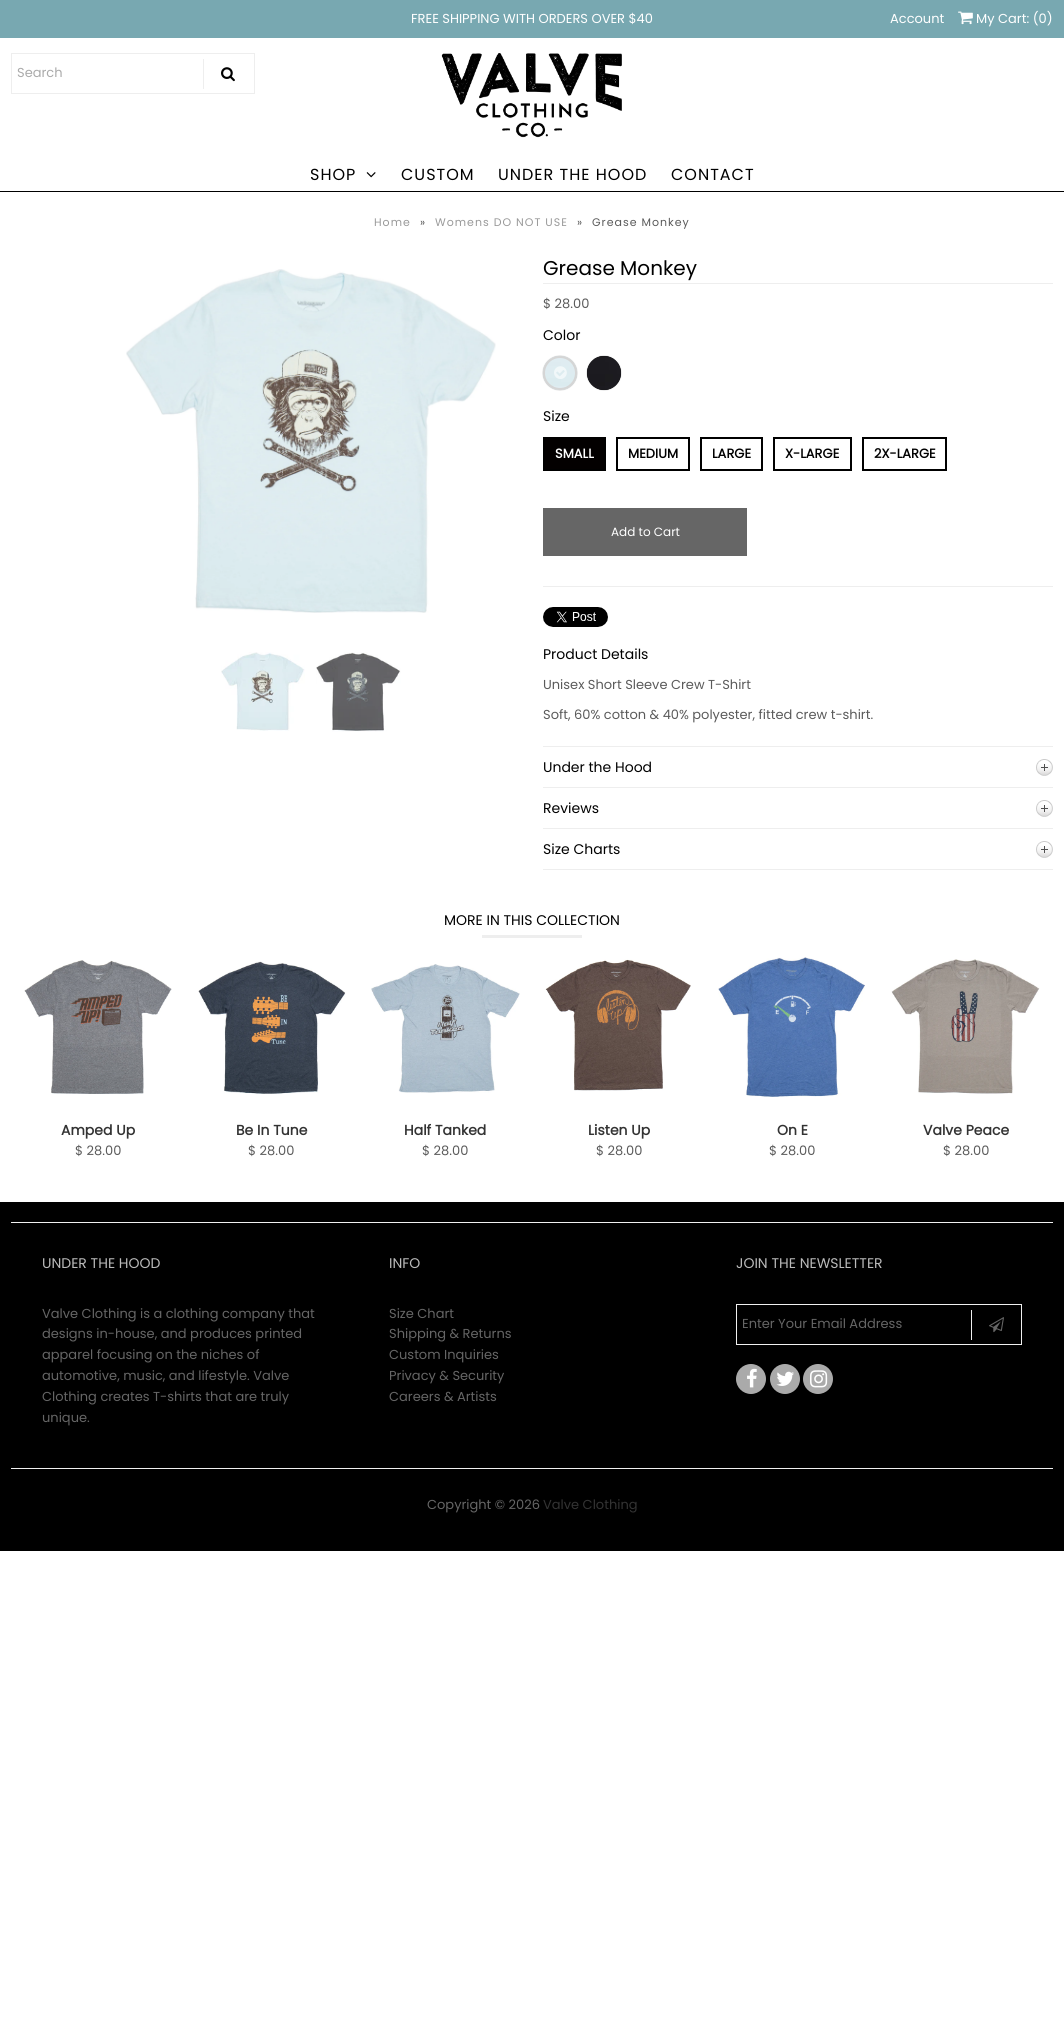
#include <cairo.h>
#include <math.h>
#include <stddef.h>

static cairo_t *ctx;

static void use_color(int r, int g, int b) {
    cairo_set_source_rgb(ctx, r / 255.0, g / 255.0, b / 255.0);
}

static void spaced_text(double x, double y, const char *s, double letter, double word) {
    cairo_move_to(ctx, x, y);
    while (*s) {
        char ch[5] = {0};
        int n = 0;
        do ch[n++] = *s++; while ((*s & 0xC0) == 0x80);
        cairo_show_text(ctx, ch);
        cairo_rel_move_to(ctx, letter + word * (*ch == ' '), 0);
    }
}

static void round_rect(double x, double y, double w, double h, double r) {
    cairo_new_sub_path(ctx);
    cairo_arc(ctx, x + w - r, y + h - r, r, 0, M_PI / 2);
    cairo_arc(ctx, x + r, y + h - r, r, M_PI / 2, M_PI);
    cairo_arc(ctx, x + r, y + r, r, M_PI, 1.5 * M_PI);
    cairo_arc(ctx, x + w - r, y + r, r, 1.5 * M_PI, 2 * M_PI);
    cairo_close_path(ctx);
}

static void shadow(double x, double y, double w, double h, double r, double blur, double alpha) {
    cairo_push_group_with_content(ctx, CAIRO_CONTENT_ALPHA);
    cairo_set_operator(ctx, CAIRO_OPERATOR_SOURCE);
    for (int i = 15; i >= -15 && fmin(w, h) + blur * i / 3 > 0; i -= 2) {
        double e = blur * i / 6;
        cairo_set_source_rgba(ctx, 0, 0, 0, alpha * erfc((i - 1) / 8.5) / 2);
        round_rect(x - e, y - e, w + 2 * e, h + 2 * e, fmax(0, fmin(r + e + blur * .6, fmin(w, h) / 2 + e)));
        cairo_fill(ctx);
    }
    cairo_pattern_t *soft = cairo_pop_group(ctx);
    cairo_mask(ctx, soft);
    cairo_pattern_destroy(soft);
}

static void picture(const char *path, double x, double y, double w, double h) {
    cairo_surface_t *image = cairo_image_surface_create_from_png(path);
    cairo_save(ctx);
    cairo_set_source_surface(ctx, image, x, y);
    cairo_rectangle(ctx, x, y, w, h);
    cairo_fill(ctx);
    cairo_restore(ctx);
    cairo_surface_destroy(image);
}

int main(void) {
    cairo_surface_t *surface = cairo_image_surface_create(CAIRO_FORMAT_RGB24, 1064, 2019);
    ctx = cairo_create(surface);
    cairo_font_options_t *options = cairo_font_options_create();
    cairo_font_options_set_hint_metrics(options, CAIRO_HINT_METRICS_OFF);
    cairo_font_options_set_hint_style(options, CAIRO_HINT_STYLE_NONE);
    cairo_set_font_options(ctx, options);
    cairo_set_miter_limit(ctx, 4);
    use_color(255, 255, 255);
    cairo_paint(ctx);
    use_color(120, 168, 177);
    cairo_rectangle(ctx, 0, 0, 1064, 38);
    cairo_fill(ctx);
    cairo_select_font_face(ctx, "Poppins", CAIRO_FONT_SLANT_NORMAL, CAIRO_FONT_WEIGHT_NORMAL);
    cairo_set_font_size(ctx, 13);
    use_color(255, 255, 255);
    cairo_move_to(ctx, 411, 23);
    cairo_show_text(ctx, "FREE SHIPPING WITH ORDERS OVER $40");
    cairo_move_to(ctx, 890, 23);
    cairo_show_text(ctx, "Account");
    picture("img1.png", 958, 11, 15, 14);
    cairo_move_to(ctx, 976, 23);
    cairo_show_text(ctx, "My Cart: (0)");
    cairo_rectangle(ctx, 11.5, 53.5, 243, 40);
    use_color(238, 238, 238);
    cairo_set_line_width(ctx, 1);
    cairo_stroke(ctx);
    use_color(170, 170, 170);
    cairo_move_to(ctx, 17, 77);
    cairo_show_text(ctx, "Search");
    use_color(238, 238, 238);
    cairo_rectangle(ctx, 203, 59, 1, 30);
    cairo_fill(ctx);
    picture("img2.png", 221, 67, 14, 15);
    picture("img3.png", 441, 53, 181, 85);
    use_color(0, 0, 0);
    cairo_rectangle(ctx, 0, 191, 1064, 1);
    cairo_fill(ctx);
    cairo_set_font_size(ctx, 16);
    spaced_text(310, 180, "SHOP", 1, 0);
    picture("img4.png", 366, 172, 10, 6);
    spaced_text(401, 180, "CUSTOM", 1, 0);
    spaced_text(498, 180, "UNDER THE HOOD", 1, 0);
    spaced_text(671, 180, "CONTACT", 1, 0);
    cairo_set_font_size(ctx, 11);
    use_color(153, 153, 153);
    spaced_text(374, 226, "Home", 1, 0);
    use_color(90, 90, 90);
    spaced_text(420, 226, "»", 1, 0);
    use_color(153, 153, 153);
    spaced_text(435, 226, "Womens DO NOT USE", 1, 0);
    use_color(90, 90, 90);
    spaced_text(577, 226, "»", 1, 0);
    spaced_text(592, 226, "Grease Monkey", 1, 0);
    picture("img5.png", 126, 269, 370, 344);
    picture("img6.png", 221, 652, 84, 79);
    picture("img7.png", 316, 652, 85, 80);
    use_color(238, 238, 238);
    cairo_rectangle(ctx, 543, 283, 510, 1);
    cairo_fill(ctx);
    cairo_set_font_size(ctx, 20);
    use_color(0, 0, 0);
    cairo_move_to(ctx, 543, 275);
    cairo_show_text(ctx, "Grease Monkey");
    cairo_set_font_size(ctx, 13);
    use_color(90, 90, 90);
    cairo_move_to(ctx, 543, 308);
    cairo_show_text(ctx, "$ 28.00");
    cairo_set_font_size(ctx, 14);
    use_color(0, 0, 0);
    cairo_move_to(ctx, 543, 340);
    cairo_show_text(ctx, "Color");
    use_color(170, 170, 170);
    shadow(543, 356, 34, 34, 17, 0.5, 1);
    picture("img8.png", 543, 356, 34, 34);
    cairo_arc(ctx, 560, 373, 16, 0, 2 * M_PI);
    use_color(213, 213, 213);
    cairo_set_line_width(ctx, 2);
    cairo_stroke(ctx);
    picture("img9.png", 554, 366, 13, 13);
    use_color(170, 170, 170);
    shadow(587, 356, 34, 34, 17, 0.5, 1);
    use_color(0, 0, 0);
    cairo_arc(ctx, 604, 373, 17, 0, 2 * M_PI);
    cairo_fill(ctx);
    picture("img10.png", 587, 356, 34, 34);
    cairo_move_to(ctx, 543, 421);
    cairo_show_text(ctx, "Size");
    use_color(3, 0, 0);
    cairo_rectangle(ctx, 544, 438, 61, 32);
    cairo_fill_preserve(ctx);
    use_color(0, 0, 0);
    cairo_stroke(ctx);
    cairo_select_font_face(ctx, "Poppins", CAIRO_FONT_SLANT_NORMAL, CAIRO_FONT_WEIGHT_BOLD);
    cairo_set_font_size(ctx, 13);
    use_color(255, 255, 255);
    cairo_move_to(ctx, 555, 458);
    cairo_show_text(ctx, "SMALL");
    cairo_rectangle(ctx, 617, 438, 72, 32);
    use_color(0, 0, 0);
    cairo_stroke(ctx);
    cairo_move_to(ctx, 628, 458);
    cairo_show_text(ctx, "MEDIUM");
    cairo_rectangle(ctx, 701, 438, 61, 32);
    cairo_stroke(ctx);
    cairo_move_to(ctx, 712, 458);
    cairo_show_text(ctx, "LARGE");
    cairo_rectangle(ctx, 774, 438, 77, 32);
    cairo_stroke(ctx);
    cairo_move_to(ctx, 785, 458);
    cairo_show_text(ctx, "X-LARGE");
    cairo_rectangle(ctx, 863, 438, 83, 32);
    cairo_stroke(ctx);
    cairo_move_to(ctx, 874, 458);
    cairo_show_text(ctx, "2X-LARGE");
    use_color(102, 102, 102);
    cairo_rectangle(ctx, 543, 508, 204, 48);
    cairo_fill(ctx);
    cairo_select_font_face(ctx, "Poppins", CAIRO_FONT_SLANT_NORMAL, CAIRO_FONT_WEIGHT_NORMAL);
    cairo_set_font_size(ctx, 12);
    use_color(255, 255, 255);
    cairo_move_to(ctx, 611, 536);
    cairo_show_text(ctx, "Add to Cart");
    use_color(238, 238, 238);
    cairo_rectangle(ctx, 543, 586, 510, 1);
    cairo_fill(ctx);
    cairo_rectangle(ctx, 543, 869, 510, 1);
    cairo_fill(ctx);
    picture("img11.png", 543, 607, 65, 20);
    cairo_set_font_size(ctx, 14);
    use_color(0, 0, 0);
    cairo_move_to(ctx, 543, 659);
    cairo_show_text(ctx, "Product Details");
    cairo_set_font_size(ctx, 13);
    use_color(90, 90, 90);
    cairo_move_to(ctx, 543, 689);
    cairo_show_text(ctx, "Unisex Short Sleeve Crew T-Shirt");
    cairo_move_to(ctx, 543, 719);
    cairo_show_text(ctx, "Soft, 60% cotton & 40% polyester, fitted crew t-shirt.");
    use_color(238, 238, 238);
    cairo_rectangle(ctx, 543, 746, 510, 1);
    cairo_fill(ctx);
    picture("img12.png", 1036, 759, 17, 17);
    cairo_set_font_size(ctx, 14);
    use_color(0, 0, 0);
    cairo_move_to(ctx, 543, 772);
    cairo_show_text(ctx, "Under the Hood");
    use_color(238, 238, 238);
    cairo_rectangle(ctx, 543, 787, 510, 1);
    cairo_fill(ctx);
    picture("img12.png", 1036, 800, 17, 17);
    use_color(0, 0, 0);
    cairo_move_to(ctx, 543, 813);
    cairo_show_text(ctx, "Reviews");
    use_color(238, 238, 238);
    cairo_rectangle(ctx, 543, 828, 510, 1);
    cairo_fill(ctx);
    picture("img12.png", 1036, 841, 17, 17);
    use_color(0, 0, 0);
    cairo_move_to(ctx, 543, 854);
    cairo_show_text(ctx, "Size Charts");
    cairo_move_to(ctx, 444, 925);
    cairo_show_text(ctx, "MORE IN THIS COLLECTION");
    use_color(238, 238, 238);
    cairo_rectangle(ctx, 482, 935, 100, 3);
    cairo_fill(ctx);
    picture("img13.png", 24, 960, 148, 134);
    cairo_select_font_face(ctx, "Poppins", CAIRO_FONT_SLANT_NORMAL, CAIRO_FONT_WEIGHT_BOLD);
    use_color(51, 51, 51);
    cairo_move_to(ctx, 61, 1135);
    cairo_show_text(ctx, "Amped Up");
    cairo_select_font_face(ctx, "Poppins", CAIRO_FONT_SLANT_NORMAL, CAIRO_FONT_WEIGHT_NORMAL);
    cairo_set_font_size(ctx, 13);
    use_color(90, 90, 90);
    cairo_move_to(ctx, 75, 1155);
    cairo_show_text(ctx, "$ 28.00");
    picture("img14.png", 198, 961, 148, 133);
    cairo_select_font_face(ctx, "Poppins", CAIRO_FONT_SLANT_NORMAL, CAIRO_FONT_WEIGHT_BOLD);
    cairo_set_font_size(ctx, 14);
    use_color(51, 51, 51);
    cairo_move_to(ctx, 236, 1135);
    cairo_show_text(ctx, "Be In Tune");
    cairo_select_font_face(ctx, "Poppins", CAIRO_FONT_SLANT_NORMAL, CAIRO_FONT_WEIGHT_NORMAL);
    cairo_set_font_size(ctx, 13);
    use_color(90, 90, 90);
    cairo_move_to(ctx, 248, 1155);
    cairo_show_text(ctx, "$ 28.00");
    picture("img15.png", 371, 964, 149, 129);
    cairo_select_font_face(ctx, "Poppins", CAIRO_FONT_SLANT_NORMAL, CAIRO_FONT_WEIGHT_BOLD);
    cairo_set_font_size(ctx, 14);
    use_color(51, 51, 51);
    cairo_move_to(ctx, 404, 1135);
    cairo_show_text(ctx, "Half Tanked");
    cairo_select_font_face(ctx, "Poppins", CAIRO_FONT_SLANT_NORMAL, CAIRO_FONT_WEIGHT_NORMAL);
    cairo_set_font_size(ctx, 13);
    use_color(90, 90, 90);
    cairo_move_to(ctx, 422, 1155);
    cairo_show_text(ctx, "$ 28.00");
    picture("img16.png", 545, 959, 146, 132);
    cairo_select_font_face(ctx, "Poppins", CAIRO_FONT_SLANT_NORMAL, CAIRO_FONT_WEIGHT_BOLD);
    cairo_set_font_size(ctx, 14);
    use_color(51, 51, 51);
    cairo_move_to(ctx, 588, 1135);
    cairo_show_text(ctx, "Listen Up");
    cairo_select_font_face(ctx, "Poppins", CAIRO_FONT_SLANT_NORMAL, CAIRO_FONT_WEIGHT_NORMAL);
    cairo_set_font_size(ctx, 13);
    use_color(90, 90, 90);
    cairo_move_to(ctx, 596, 1155);
    cairo_show_text(ctx, "$ 28.00");
    picture("img17.png", 718, 957, 147, 140);
    cairo_select_font_face(ctx, "Poppins", CAIRO_FONT_SLANT_NORMAL, CAIRO_FONT_WEIGHT_BOLD);
    cairo_set_font_size(ctx, 14);
    use_color(51, 51, 51);
    cairo_move_to(ctx, 777, 1135);
    cairo_show_text(ctx, "On E");
    cairo_select_font_face(ctx, "Poppins", CAIRO_FONT_SLANT_NORMAL, CAIRO_FONT_WEIGHT_NORMAL);
    cairo_set_font_size(ctx, 13);
    use_color(90, 90, 90);
    cairo_move_to(ctx, 769, 1155);
    cairo_show_text(ctx, "$ 28.00");
    picture("img18.png", 891, 959, 149, 135);
    cairo_select_font_face(ctx, "Poppins", CAIRO_FONT_SLANT_NORMAL, CAIRO_FONT_WEIGHT_BOLD);
    cairo_set_font_size(ctx, 14);
    use_color(51, 51, 51);
    cairo_move_to(ctx, 923, 1135);
    cairo_show_text(ctx, "Valve Peace");
    cairo_select_font_face(ctx, "Poppins", CAIRO_FONT_SLANT_NORMAL, CAIRO_FONT_WEIGHT_NORMAL);
    cairo_set_font_size(ctx, 13);
    use_color(90, 90, 90);
    cairo_move_to(ctx, 943, 1155);
    cairo_show_text(ctx, "$ 28.00");
    use_color(0, 0, 0);
    cairo_rectangle(ctx, 0, 1202, 1064, 349);
    cairo_fill(ctx);
    use_color(240, 240, 240);
    cairo_rectangle(ctx, 11, 1222, 1042, 1);
    cairo_fill(ctx);
    cairo_rectangle(ctx, 11, 1468, 1042, 1);
    cairo_fill(ctx);
    cairo_set_font_size(ctx, 14);
    use_color(187, 187, 187);
    cairo_move_to(ctx, 42, 1268);
    cairo_show_text(ctx, "UNDER THE HOOD");
    cairo_set_font_size(ctx, 13);
    use_color(102, 102, 102);
    cairo_move_to(ctx, 42, 1318);
    cairo_show_text(ctx, "Valve Clothing is a clothing company that");
    cairo_move_to(ctx, 42, 1338);
    cairo_show_text(ctx, "designs in-house, and produces printed");
    cairo_move_to(ctx, 42, 1359);
    cairo_show_text(ctx, "apparel focusing on the niches of");
    cairo_move_to(ctx, 42, 1380);
    cairo_show_text(ctx, "automotive, music, and lifestyle. Valve");
    cairo_move_to(ctx, 42, 1401);
    cairo_show_text(ctx, "Clothing creates T-shirts that are truly");
    cairo_move_to(ctx, 42, 1422);
    cairo_show_text(ctx, "unique.");
    cairo_set_font_size(ctx, 14);
    use_color(187, 187, 187);
    cairo_move_to(ctx, 389, 1268);
    cairo_show_text(ctx, "INFO");
    cairo_set_font_size(ctx, 13);
    use_color(102, 102, 102);
    cairo_move_to(ctx, 389, 1318);
    cairo_show_text(ctx, "Size Chart");
    cairo_move_to(ctx, 389, 1338);
    cairo_show_text(ctx, "Shipping & Returns");
    cairo_move_to(ctx, 389, 1359);
    cairo_show_text(ctx, "Custom Inquiries");
    cairo_move_to(ctx, 389, 1380);
    cairo_show_text(ctx, "Privacy & Security");
    cairo_move_to(ctx, 389, 1401);
    cairo_show_text(ctx, "Careers & Artists");
    cairo_set_font_size(ctx, 14);
    use_color(187, 187, 187);
    cairo_move_to(ctx, 736, 1268);
    cairo_show_text(ctx, "JOIN THE NEWSLETTER");
    cairo_rectangle(ctx, 736.5, 1304.5, 285, 40);
    use_color(240, 240, 240);
    cairo_set_line_width(ctx, 1);
    cairo_stroke(ctx);
    cairo_set_font_size(ctx, 13);
    use_color(102, 102, 102);
    cairo_move_to(ctx, 742, 1328);
    cairo_show_text(ctx, "Enter Your Email Address");
    use_color(240, 240, 240);
    cairo_rectangle(ctx, 971, 1310, 1, 30);
    cairo_fill(ctx);
    picture("img19.png", 989, 1317, 15, 16);
    use_color(170, 170, 170);
    cairo_arc(ctx, 751, 1379, 15, 0, 2 * M_PI);
    cairo_fill(ctx);
    picture("img20.png", 747, 1368, 10, 20);
    cairo_arc(ctx, 785, 1379, 15, 0, 2 * M_PI);
    cairo_fill(ctx);
    picture("img21.png", 776, 1371, 18, 15);
    cairo_arc(ctx, 818, 1379, 15, 0, 2 * M_PI);
    cairo_fill(ctx);
    picture("img22.png", 810, 1370, 18, 18);
    use_color(102, 102, 102);
    cairo_move_to(ctx, 427, 1509);
    cairo_show_text(ctx, "Copyright © 2026");
    use_color(51, 51, 51);
    cairo_move_to(ctx, 543, 1509);
    cairo_show_text(ctx, "Valve Clothing");
    cairo_surface_write_to_png(surface, "result.png");
    cairo_font_options_destroy(options);
    cairo_destroy(ctx);
    cairo_surface_destroy(surface);
    return 0;
}
